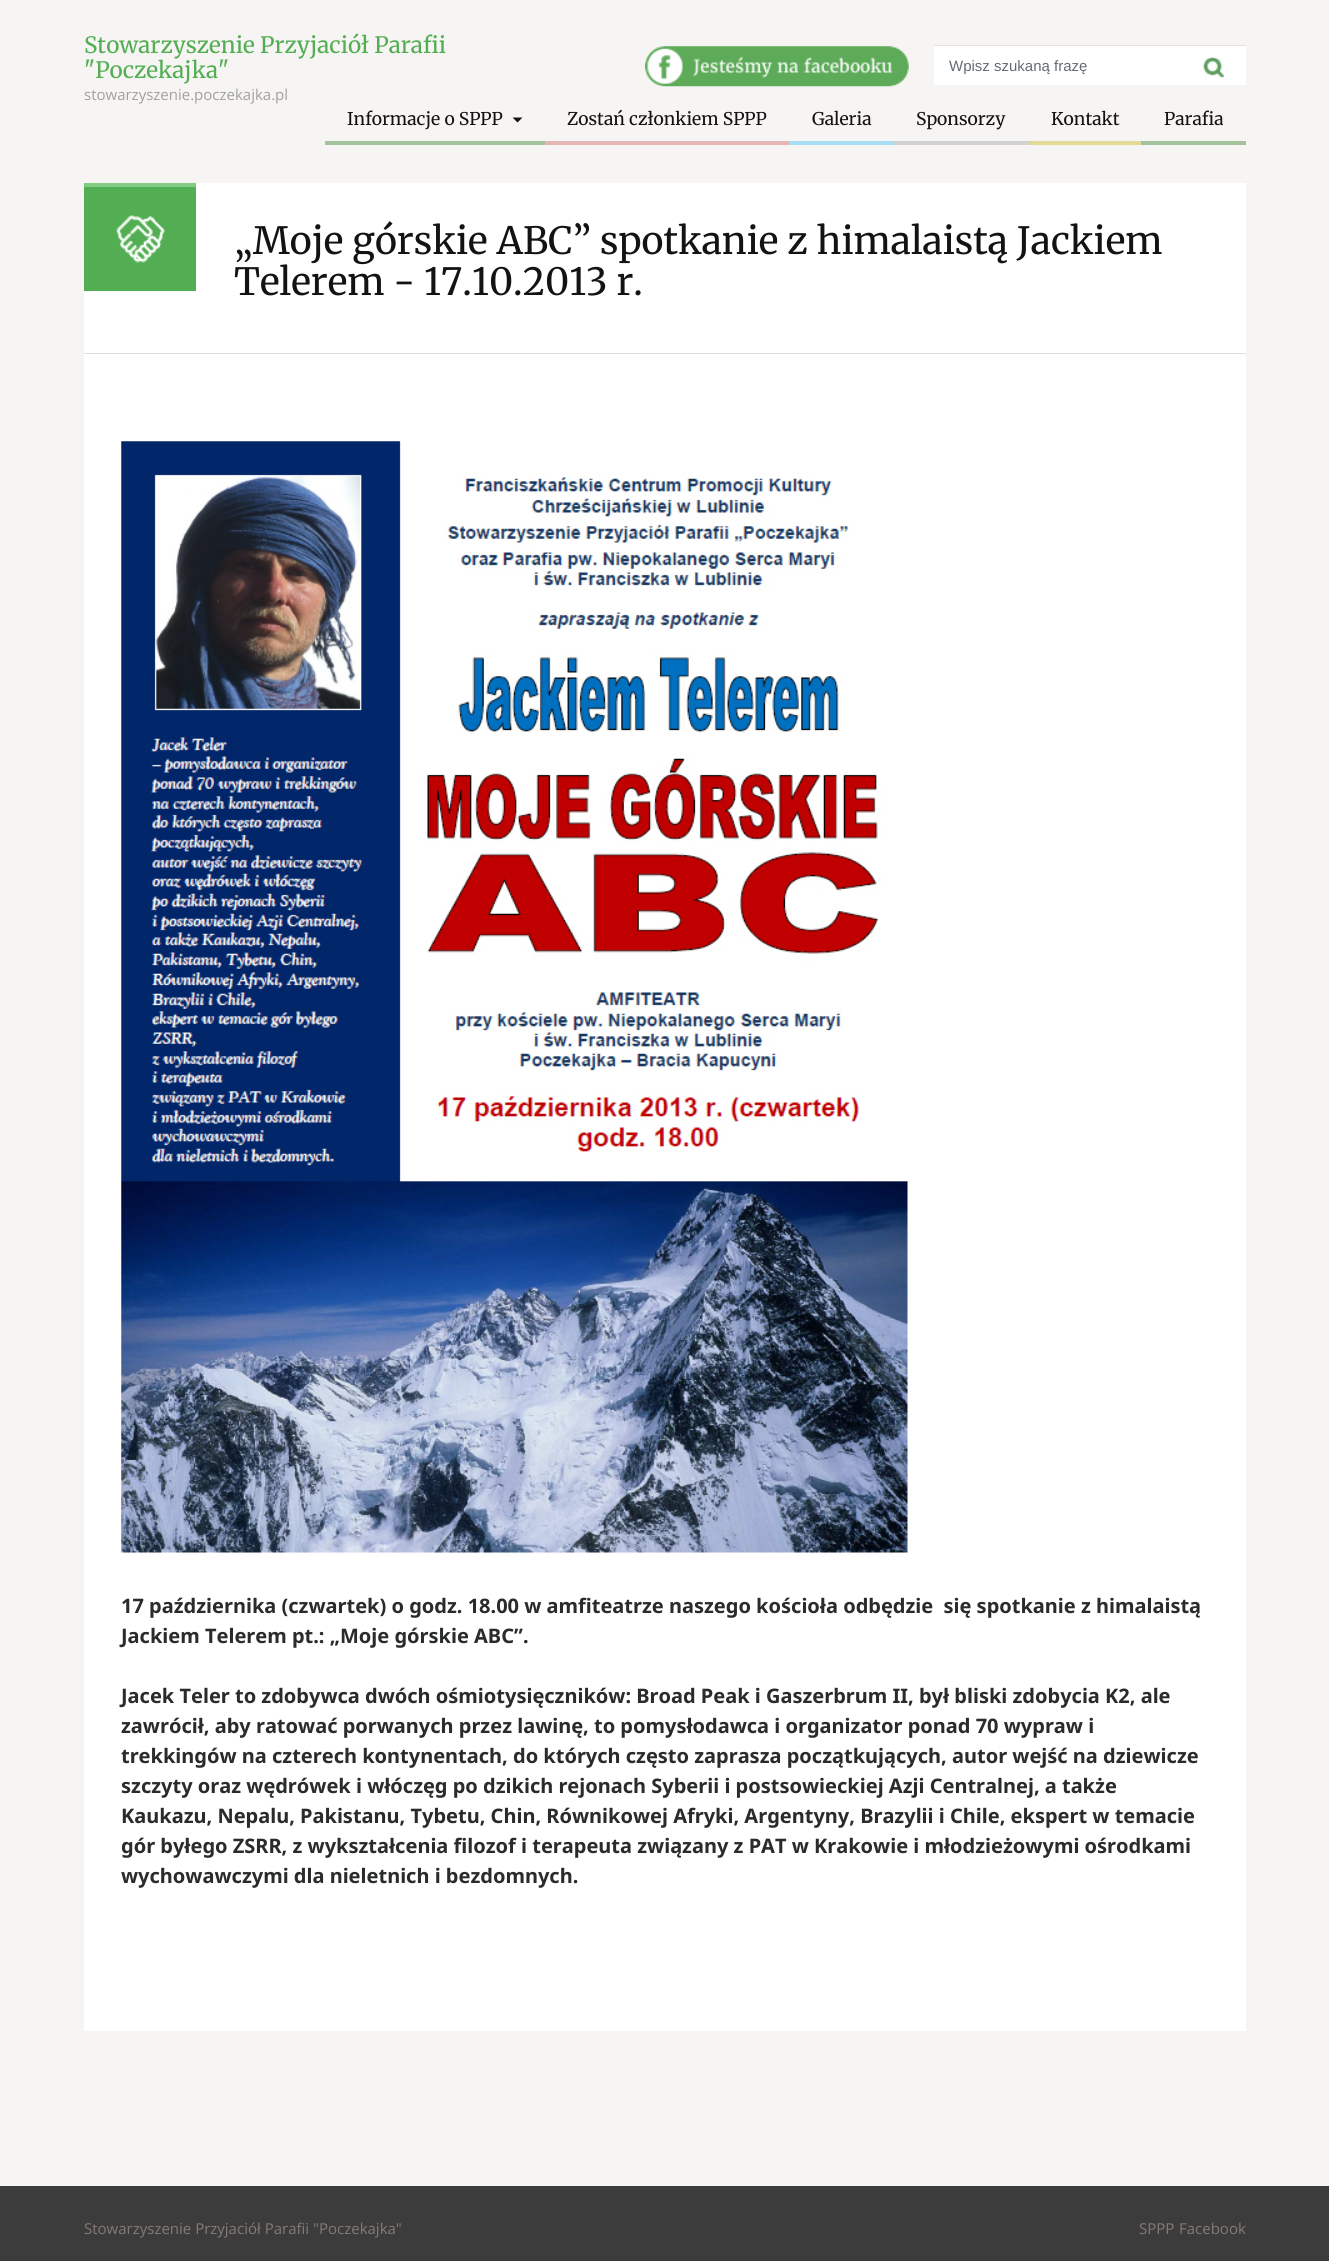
#include <cairo.h>
#include <math.h>
#include <stddef.h>

static cairo_t *ctx;

static void use_color(int r, int g, int b) {
    cairo_set_source_rgb(ctx, r / 255.0, g / 255.0, b / 255.0);
}

static void picture(const char *path, double x, double y, double w, double h) {
    cairo_surface_t *image = cairo_image_surface_create_from_png(path);
    cairo_save(ctx);
    cairo_set_source_surface(ctx, image, x, y);
    cairo_rectangle(ctx, x, y, w, h);
    cairo_fill(ctx);
    cairo_restore(ctx);
    cairo_surface_destroy(image);
}

int main(void) {
    cairo_surface_t *surface = cairo_image_surface_create(CAIRO_FORMAT_RGB24, 1329, 2261);
    ctx = cairo_create(surface);
    cairo_font_options_t *options = cairo_font_options_create();
    cairo_font_options_set_hint_metrics(options, CAIRO_HINT_METRICS_OFF);
    cairo_font_options_set_hint_style(options, CAIRO_HINT_STYLE_NONE);
    cairo_set_font_options(ctx, options);
    cairo_set_miter_limit(ctx, 4);
    use_color(247, 245, 243);
    cairo_paint(ctx);
    cairo_select_font_face(ctx, "Merriweather Light", CAIRO_FONT_SLANT_NORMAL, CAIRO_FONT_WEIGHT_NORMAL);
    cairo_set_font_size(ctx, 22.5);
    use_color(83, 174, 83);
    cairo_move_to(ctx, 84, 53);
    cairo_show_text(ctx, "Stowarzyszenie Przyjaciół Parafii");
    cairo_move_to(ctx, 84, 78);
    cairo_show_text(ctx, "\"Poczekajka\"");
    cairo_select_font_face(ctx, "Open Sans", CAIRO_FONT_SLANT_NORMAL, CAIRO_FONT_WEIGHT_NORMAL);
    cairo_set_font_size(ctx, 15);
    use_color(160, 160, 160);
    cairo_move_to(ctx, 84, 100);
    cairo_show_text(ctx, "stowarzyszenie.poczekajka.pl");
    picture("img1.png", 645, 46, 264, 41);
    use_color(255, 255, 255);
    cairo_rectangle(ctx, 934, 46, 312, 39);
    cairo_fill(ctx);
    use_color(230, 226, 221);
    cairo_rectangle(ctx, 934, 45, 312, 1);
    cairo_fill(ctx);
    cairo_select_font_face(ctx, "Liberation Sans", CAIRO_FONT_SLANT_NORMAL, CAIRO_FONT_WEIGHT_NORMAL);
    use_color(99, 108, 114);
    cairo_move_to(ctx, 949, 71);
    cairo_show_text(ctx, "Wpisz szukaną frazę");
    picture("img2.png", 1203, 57, 21, 21);
    use_color(161, 194, 154);
    cairo_rectangle(ctx, 325, 141, 220, 4);
    cairo_fill(ctx);
    cairo_select_font_face(ctx, "Merriweather Light", CAIRO_FONT_SLANT_NORMAL, CAIRO_FONT_WEIGHT_NORMAL);
    cairo_set_font_size(ctx, 17.5);
    use_color(20, 18, 18);
    cairo_move_to(ctx, 347, 125);
    cairo_show_text(ctx, "Informacje o SPPP");
    cairo_new_path(ctx);
    cairo_move_to(ctx, 512.5, 117.5);
    cairo_line_to(ctx, 522.5, 117.5);
    cairo_line_to(ctx, 517.5, 122.5);
    cairo_close_path(ctx);
    cairo_fill(ctx);
    use_color(228, 182, 182);
    cairo_rectangle(ctx, 545, 141, 244, 4);
    cairo_fill(ctx);
    use_color(20, 18, 18);
    cairo_move_to(ctx, 567, 125);
    cairo_show_text(ctx, "Zostań członkiem SPPP");
    use_color(166, 223, 244);
    cairo_rectangle(ctx, 789, 141, 105, 4);
    cairo_fill(ctx);
    use_color(20, 18, 18);
    cairo_move_to(ctx, 812, 125);
    cairo_show_text(ctx, "Galeria");
    use_color(210, 210, 210);
    cairo_rectangle(ctx, 894, 141, 135, 4);
    cairo_fill(ctx);
    use_color(20, 18, 18);
    cairo_move_to(ctx, 916, 125);
    cairo_show_text(ctx, "Sponsorzy");
    use_color(227, 219, 149);
    cairo_rectangle(ctx, 1029, 141, 112, 4);
    cairo_fill(ctx);
    use_color(20, 18, 18);
    cairo_move_to(ctx, 1051, 125);
    cairo_show_text(ctx, "Kontakt");
    use_color(161, 194, 154);
    cairo_rectangle(ctx, 1141, 141, 105, 4);
    cairo_fill(ctx);
    use_color(20, 18, 18);
    cairo_move_to(ctx, 1164, 125);
    cairo_show_text(ctx, "Parafia");
    use_color(255, 255, 255);
    cairo_rectangle(ctx, 84, 183, 1162, 1848);
    cairo_fill(ctx);
    use_color(221, 221, 221);
    cairo_rectangle(ctx, 84, 353, 1162, 1);
    cairo_fill(ctx);
    use_color(83, 173, 83);
    cairo_rectangle(ctx, 84, 187, 112, 104);
    cairo_fill(ctx);
    picture("img3.png", 116, 214, 50, 49);
    use_color(131, 204, 131);
    cairo_rectangle(ctx, 84, 183, 112, 4);
    cairo_fill(ctx);
    cairo_set_font_size(ctx, 37.5);
    use_color(20, 18, 18);
    cairo_move_to(ctx, 234, 254);
    cairo_show_text(ctx, "„Moje górskie ABC” spotkanie z himalaistą Jackiem");
    cairo_move_to(ctx, 234, 295);
    cairo_show_text(ctx, "Telerem - 17.10.2013 r.");
    picture("img4.png", 121, 441, 787, 1112);
    cairo_select_font_face(ctx, "Noto Sans", CAIRO_FONT_SLANT_NORMAL, CAIRO_FONT_WEIGHT_BOLD);
    cairo_set_font_size(ctx, 20);
    use_color(41, 43, 44);
    cairo_move_to(ctx, 121, 1613);
    cairo_show_text(ctx, "17 października (czwartek) o godz. 18.00 w amfiteatrze naszego kościoła odbędzie  się spotkanie z himalaistą");
    cairo_move_to(ctx, 121, 1643);
    cairo_show_text(ctx, "Jackiem Telerem pt.: „Moje górskie ABC”.");
    cairo_move_to(ctx, 121, 1703);
    cairo_show_text(ctx, "Jacek Teler to zdobywca dwóch ośmiotysięczników: Broad Peak i Gaszerbrum II, był bliski zdobycia K2, ale");
    cairo_move_to(ctx, 121, 1733);
    cairo_show_text(ctx, "zawrócił, aby ratować porwanych przez lawinę, to pomysłodawca i organizator ponad 70 wypraw i");
    cairo_move_to(ctx, 121, 1763);
    cairo_show_text(ctx, "trekkingów na czterech kontynentach, do których często zaprasza początkujących, autor wejść na dziewicze");
    cairo_move_to(ctx, 121, 1793);
    cairo_show_text(ctx, "szczyty oraz wędrówek i włóczęg po dzikich rejonach Syberii i postsowieckiej Azji Centralnej, a także");
    cairo_move_to(ctx, 121, 1823);
    cairo_show_text(ctx, "Kaukazu, Nepalu, Pakistanu, Tybetu, Chin, Równikowej Afryki, Argentyny, Brazylii i Chile, ekspert w temacie");
    cairo_move_to(ctx, 121, 1853);
    cairo_show_text(ctx, "gór byłego ZSRR, z wykształcenia filozof i terapeuta związany z PAT w Krakowie i młodzieżowymi ośrodkami");
    cairo_move_to(ctx, 121, 1883);
    cairo_show_text(ctx, "wychowawczymi dla nieletnich i bezdomnych.");
    use_color(60, 60, 60);
    cairo_rectangle(ctx, 0, 2186, 1329, 75);
    cairo_fill(ctx);
    cairo_select_font_face(ctx, "Open Sans", CAIRO_FONT_SLANT_NORMAL, CAIRO_FONT_WEIGHT_NORMAL);
    cairo_set_font_size(ctx, 15);
    use_color(131, 122, 117);
    cairo_move_to(ctx, 84, 2234);
    cairo_show_text(ctx, "Stowarzyszenie Przyjaciół Parafii \"Poczekajka\"");
    cairo_move_to(ctx, 1139, 2234);
    cairo_show_text(ctx, "SPPP");
    cairo_move_to(ctx, 1179, 2234);
    cairo_show_text(ctx, "Facebook");
    cairo_surface_write_to_png(surface, "result.png");
    cairo_font_options_destroy(options);
    cairo_destroy(ctx);
    cairo_surface_destroy(surface);
    return 0;
}
